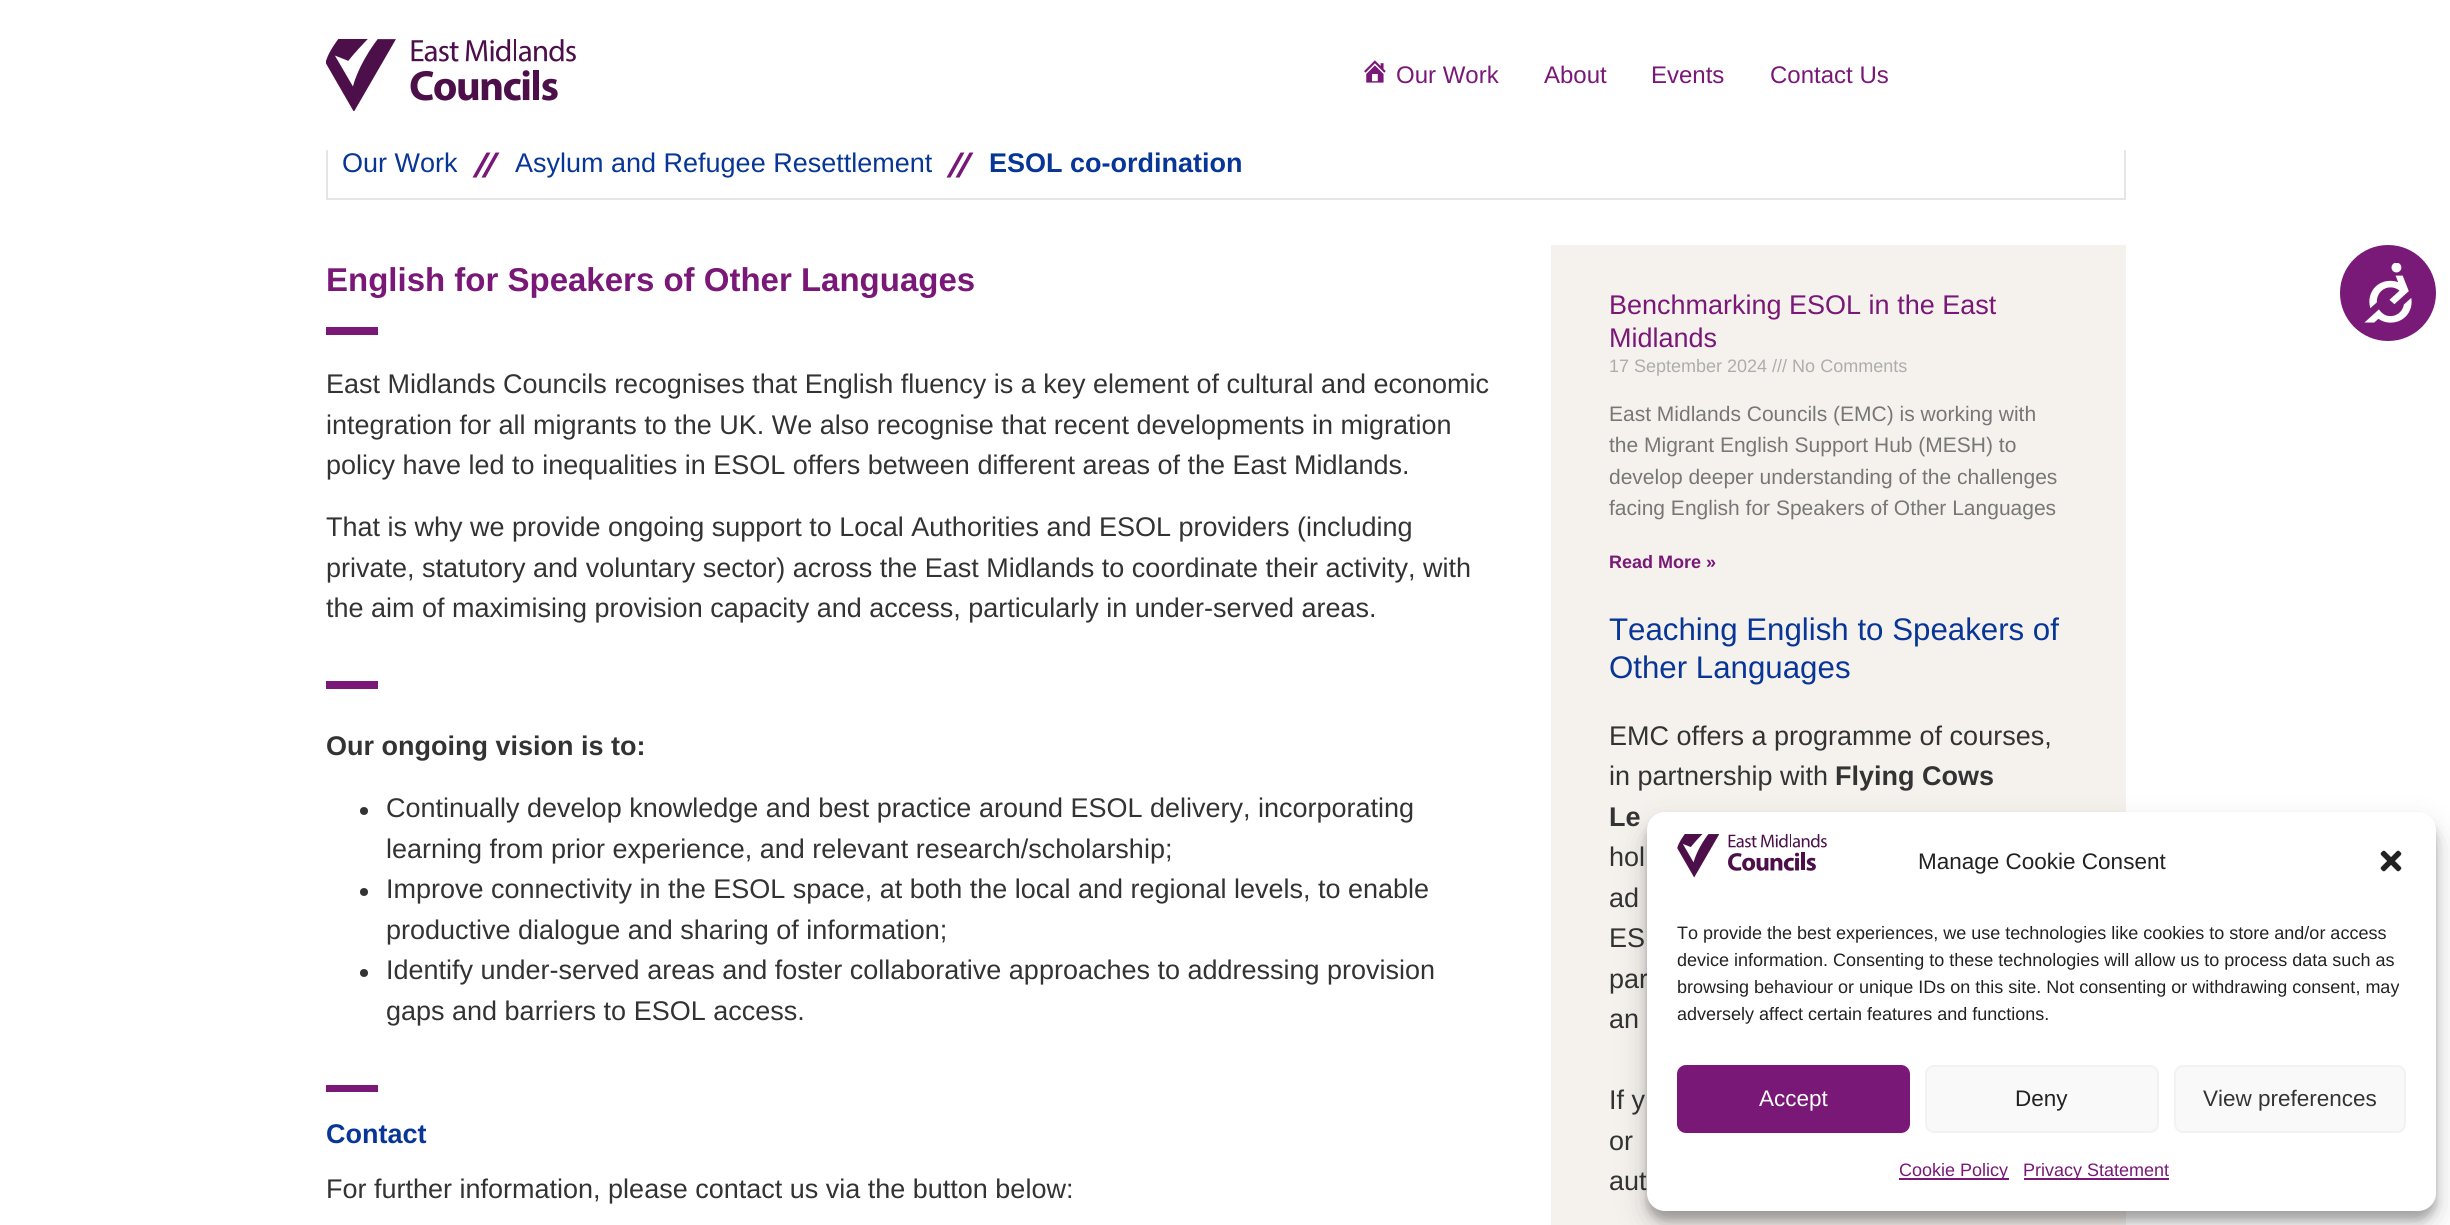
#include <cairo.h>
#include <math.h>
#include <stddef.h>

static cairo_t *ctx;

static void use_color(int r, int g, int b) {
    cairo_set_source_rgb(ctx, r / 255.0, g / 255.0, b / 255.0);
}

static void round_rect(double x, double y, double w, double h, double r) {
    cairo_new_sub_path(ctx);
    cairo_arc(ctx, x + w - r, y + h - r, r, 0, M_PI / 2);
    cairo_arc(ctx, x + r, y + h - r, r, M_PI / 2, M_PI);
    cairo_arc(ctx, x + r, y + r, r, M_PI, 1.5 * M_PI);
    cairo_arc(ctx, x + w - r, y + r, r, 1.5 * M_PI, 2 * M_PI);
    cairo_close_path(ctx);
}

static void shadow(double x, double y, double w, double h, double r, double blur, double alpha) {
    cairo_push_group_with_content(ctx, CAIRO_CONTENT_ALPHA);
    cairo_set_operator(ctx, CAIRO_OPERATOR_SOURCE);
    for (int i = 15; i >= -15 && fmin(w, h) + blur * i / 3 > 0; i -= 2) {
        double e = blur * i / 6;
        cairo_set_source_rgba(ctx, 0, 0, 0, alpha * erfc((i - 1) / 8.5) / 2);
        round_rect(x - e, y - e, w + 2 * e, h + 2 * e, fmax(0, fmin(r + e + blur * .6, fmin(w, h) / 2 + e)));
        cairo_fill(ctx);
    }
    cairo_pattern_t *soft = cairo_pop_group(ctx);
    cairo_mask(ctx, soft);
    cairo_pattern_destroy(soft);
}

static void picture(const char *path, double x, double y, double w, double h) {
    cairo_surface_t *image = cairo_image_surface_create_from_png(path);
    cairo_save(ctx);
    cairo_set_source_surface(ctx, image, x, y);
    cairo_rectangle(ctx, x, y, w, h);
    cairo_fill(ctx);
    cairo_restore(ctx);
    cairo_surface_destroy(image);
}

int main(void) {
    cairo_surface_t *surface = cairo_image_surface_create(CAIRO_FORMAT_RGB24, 2450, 1225);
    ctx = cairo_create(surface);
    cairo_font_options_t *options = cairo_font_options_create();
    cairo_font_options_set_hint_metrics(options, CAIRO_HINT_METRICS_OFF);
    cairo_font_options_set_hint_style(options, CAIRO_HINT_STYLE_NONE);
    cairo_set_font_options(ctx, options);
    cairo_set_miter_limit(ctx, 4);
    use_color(255, 255, 255);
    cairo_paint(ctx);
    cairo_rectangle(ctx, 327, 129, 1798, 70);
    use_color(230, 229, 227);
    cairo_stroke(ctx);
    use_color(255, 255, 255);
    cairo_rectangle(ctx, 326, 128, 1800, 22);
    cairo_fill(ctx);
    picture("img1.png", 326, 39, 250, 72);
    picture("img2.png", 1364, 60, 22, 23);
    cairo_select_font_face(ctx, "Liberation Sans", CAIRO_FONT_SLANT_NORMAL, CAIRO_FONT_WEIGHT_NORMAL);
    cairo_set_font_size(ctx, 24);
    use_color(121, 24, 119);
    cairo_move_to(ctx, 1396, 83);
    cairo_show_text(ctx, "Our Work");
    cairo_move_to(ctx, 1544, 83);
    cairo_show_text(ctx, "About");
    cairo_move_to(ctx, 1651, 83);
    cairo_show_text(ctx, "Events");
    cairo_move_to(ctx, 1770, 83);
    cairo_show_text(ctx, "Contact Us");
    cairo_set_font_size(ctx, 27);
    use_color(8, 54, 150);
    cairo_move_to(ctx, 342, 172);
    cairo_show_text(ctx, "Our Work");
    use_color(121, 24, 119);
    cairo_new_path(ctx);
    cairo_move_to(ctx, 486.5, 152.5);
    cairo_line_to(ctx, 472.5, 177.5);
    cairo_line_to(ctx, 476.5, 177.5);
    cairo_line_to(ctx, 490.5, 152.5);
    cairo_close_path(ctx);
    cairo_fill(ctx);
    cairo_new_path(ctx);
    cairo_move_to(ctx, 495.5, 152.5);
    cairo_line_to(ctx, 481.5, 177.5);
    cairo_line_to(ctx, 485.5, 177.5);
    cairo_line_to(ctx, 499.5, 152.5);
    cairo_close_path(ctx);
    cairo_fill(ctx);
    use_color(8, 54, 150);
    cairo_move_to(ctx, 515, 172);
    cairo_show_text(ctx, "Asylum and Refugee Resettlement");
    use_color(121, 24, 119);
    cairo_new_path(ctx);
    cairo_move_to(ctx, 960.5, 152.5);
    cairo_line_to(ctx, 946.5, 177.5);
    cairo_line_to(ctx, 950.5, 177.5);
    cairo_line_to(ctx, 964.5, 152.5);
    cairo_close_path(ctx);
    cairo_fill(ctx);
    cairo_new_path(ctx);
    cairo_move_to(ctx, 969.5, 152.5);
    cairo_line_to(ctx, 955.5, 177.5);
    cairo_line_to(ctx, 959.5, 177.5);
    cairo_line_to(ctx, 973.5, 152.5);
    cairo_close_path(ctx);
    cairo_fill(ctx);
    cairo_select_font_face(ctx, "Liberation Sans", CAIRO_FONT_SLANT_NORMAL, CAIRO_FONT_WEIGHT_BOLD);
    use_color(8, 54, 150);
    cairo_move_to(ctx, 989, 172);
    cairo_show_text(ctx, "ESOL co-ordination");
    cairo_set_font_size(ctx, 33);
    use_color(121, 24, 119);
    cairo_move_to(ctx, 326, 291);
    cairo_show_text(ctx, "English for Speakers of Other Languages");
    cairo_rectangle(ctx, 326, 327, 52, 8);
    cairo_fill(ctx);
    cairo_select_font_face(ctx, "Liberation Sans", CAIRO_FONT_SLANT_NORMAL, CAIRO_FONT_WEIGHT_NORMAL);
    cairo_set_font_size(ctx, 27);
    use_color(51, 51, 51);
    cairo_move_to(ctx, 326, 393);
    cairo_show_text(ctx, "East Midlands Councils recognises that English fluency is a key element of cultural and economic");
    cairo_move_to(ctx, 326, 434);
    cairo_show_text(ctx, "integration for all migrants to the UK. We also recognise that recent developments in migration");
    cairo_move_to(ctx, 326, 474);
    cairo_show_text(ctx, "policy have led to inequalities in ESOL offers between different areas of the East Midlands.");
    cairo_move_to(ctx, 326, 536);
    cairo_show_text(ctx, "That is why we provide ongoing support to Local Authorities and ESOL providers (including");
    cairo_move_to(ctx, 326, 577);
    cairo_show_text(ctx, "private, statutory and voluntary sector) across the East Midlands to coordinate their activity, with");
    cairo_move_to(ctx, 326, 617);
    cairo_show_text(ctx, "the aim of maximising provision capacity and access, particularly in under-served areas.");
    use_color(121, 24, 119);
    cairo_rectangle(ctx, 326, 681, 52, 8);
    cairo_fill(ctx);
    cairo_select_font_face(ctx, "Liberation Sans", CAIRO_FONT_SLANT_NORMAL, CAIRO_FONT_WEIGHT_BOLD);
    use_color(51, 51, 51);
    cairo_move_to(ctx, 326, 755);
    cairo_show_text(ctx, "Our ongoing vision is to:");
    cairo_new_path(ctx);
    cairo_arc(ctx, 364, 811, 4, 0, 2 * M_PI);
    cairo_fill(ctx);
    cairo_select_font_face(ctx, "Liberation Sans", CAIRO_FONT_SLANT_NORMAL, CAIRO_FONT_WEIGHT_NORMAL);
    cairo_move_to(ctx, 386, 817);
    cairo_show_text(ctx, "Continually develop knowledge and best practice around ESOL delivery, incorporating");
    cairo_move_to(ctx, 386, 858);
    cairo_show_text(ctx, "learning from prior experience, and relevant research/scholarship;");
    cairo_new_path(ctx);
    cairo_arc(ctx, 364, 892, 4, 0, 2 * M_PI);
    cairo_fill(ctx);
    cairo_move_to(ctx, 386, 898);
    cairo_show_text(ctx, "Improve connectivity in the ESOL space, at both the local and regional levels, to enable");
    cairo_move_to(ctx, 386, 939);
    cairo_show_text(ctx, "productive dialogue and sharing of information;");
    cairo_new_path(ctx);
    cairo_arc(ctx, 364, 973, 4, 0, 2 * M_PI);
    cairo_fill(ctx);
    cairo_move_to(ctx, 386, 979);
    cairo_show_text(ctx, "Identify under-served areas and foster collaborative approaches to addressing provision");
    cairo_move_to(ctx, 386, 1020);
    cairo_show_text(ctx, "gaps and barriers to ESOL access.");
    use_color(121, 24, 119);
    cairo_rectangle(ctx, 326, 1085, 52, 7);
    cairo_fill(ctx);
    cairo_select_font_face(ctx, "Liberation Sans", CAIRO_FONT_SLANT_NORMAL, CAIRO_FONT_WEIGHT_BOLD);
    use_color(8, 54, 150);
    cairo_move_to(ctx, 326, 1143);
    cairo_show_text(ctx, "Contact");
    cairo_select_font_face(ctx, "Liberation Sans", CAIRO_FONT_SLANT_NORMAL, CAIRO_FONT_WEIGHT_NORMAL);
    use_color(51, 51, 51);
    cairo_move_to(ctx, 326, 1198);
    cairo_show_text(ctx, "For further information, please contact us via the button below:");
    use_color(245, 241, 237);
    cairo_rectangle(ctx, 1551, 245, 575, 980);
    cairo_fill(ctx);
    use_color(121, 24, 119);
    cairo_move_to(ctx, 1609, 314);
    cairo_show_text(ctx, "Benchmarking ESOL in the East");
    cairo_move_to(ctx, 1609, 347);
    cairo_show_text(ctx, "Midlands");
    cairo_set_font_size(ctx, 18);
    use_color(173, 173, 173);
    cairo_move_to(ctx, 1609, 372);
    cairo_show_text(ctx, "17 September 2024 /// No Comments");
    cairo_set_font_size(ctx, 21);
    use_color(119, 119, 119);
    cairo_move_to(ctx, 1609, 421);
    cairo_show_text(ctx, "East Midlands Councils (EMC) is working with");
    cairo_move_to(ctx, 1609, 452);
    cairo_show_text(ctx, "the Migrant English Support Hub (MESH) to");
    cairo_move_to(ctx, 1609, 484);
    cairo_show_text(ctx, "develop deeper understanding of the challenges");
    cairo_move_to(ctx, 1609, 515);
    cairo_show_text(ctx, "facing English for Speakers of Other Languages");
    cairo_select_font_face(ctx, "Liberation Sans", CAIRO_FONT_SLANT_NORMAL, CAIRO_FONT_WEIGHT_BOLD);
    cairo_set_font_size(ctx, 18);
    use_color(121, 24, 119);
    cairo_move_to(ctx, 1609, 568);
    cairo_show_text(ctx, "Read More »");
    cairo_select_font_face(ctx, "Liberation Sans", CAIRO_FONT_SLANT_NORMAL, CAIRO_FONT_WEIGHT_NORMAL);
    cairo_set_font_size(ctx, 31.25);
    use_color(8, 54, 150);
    cairo_move_to(ctx, 1609, 640);
    cairo_show_text(ctx, "Teaching English to Speakers of");
    cairo_move_to(ctx, 1609, 678);
    cairo_show_text(ctx, "Other Languages");
    cairo_set_font_size(ctx, 27);
    use_color(51, 51, 51);
    cairo_move_to(ctx, 1609, 745);
    cairo_show_text(ctx, "EMC offers a programme of courses,");
    cairo_move_to(ctx, 1609, 785);
    cairo_show_text(ctx, "in partnership with");
    cairo_select_font_face(ctx, "Liberation Sans", CAIRO_FONT_SLANT_NORMAL, CAIRO_FONT_WEIGHT_BOLD);
    cairo_move_to(ctx, 1835, 785);
    cairo_show_text(ctx, "Flying Cows");
    cairo_move_to(ctx, 1609, 826);
    cairo_show_text(ctx, "Le");
    cairo_select_font_face(ctx, "Liberation Sans", CAIRO_FONT_SLANT_NORMAL, CAIRO_FONT_WEIGHT_NORMAL);
    cairo_move_to(ctx, 1609, 866);
    cairo_show_text(ctx, "hol");
    cairo_move_to(ctx, 1609, 907);
    cairo_show_text(ctx, "ad");
    cairo_move_to(ctx, 1609, 947);
    cairo_show_text(ctx, "ES");
    cairo_move_to(ctx, 1609, 988);
    cairo_show_text(ctx, "par");
    cairo_move_to(ctx, 1609, 1028);
    cairo_show_text(ctx, "an");
    cairo_move_to(ctx, 1609, 1109);
    cairo_show_text(ctx, "If y");
    cairo_move_to(ctx, 1609, 1150);
    cairo_show_text(ctx, "or");
    cairo_move_to(ctx, 1609, 1190);
    cairo_show_text(ctx, "aut");
    use_color(121, 26, 120);
    cairo_new_path(ctx);
    cairo_arc(ctx, 2388, 293, 48, 0, 2 * M_PI);
    cairo_fill(ctx);
    picture("img3.png", 2364, 263, 48, 60);
    use_color(0, 0, 0);
    shadow(1647, 821, 789, 399, 18, 4.5, 0.23);
    shadow(1647, 827, 789, 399, 18, 15, 0.19);
    use_color(255, 255, 255);
    round_rect(1647, 812, 789, 399, 18);
    cairo_fill(ctx);
    picture("img4.png", 1677, 834, 150, 44);
    cairo_set_font_size(ctx, 22.5);
    use_color(34, 34, 34);
    cairo_move_to(ctx, 1918, 869);
    cairo_show_text(ctx, "Manage Cookie Consent");
    picture("img5.png", 2380, 850, 22, 22);
    cairo_set_font_size(ctx, 18);
    cairo_move_to(ctx, 1677, 939);
    cairo_show_text(ctx, "To provide the best experiences, we use technologies like cookies to store and/or access");
    cairo_move_to(ctx, 1677, 966);
    cairo_show_text(ctx, "device information. Consenting to these technologies will allow us to process data such as");
    cairo_move_to(ctx, 1677, 993);
    cairo_show_text(ctx, "browsing behaviour or unique IDs on this site. Not consenting or withdrawing consent, may");
    cairo_move_to(ctx, 1677, 1020);
    cairo_show_text(ctx, "adversely affect certain features and functions.");
    use_color(121, 24, 119);
    round_rect(1678, 1066, 231, 66, 8);
    cairo_fill_preserve(ctx);
    cairo_stroke(ctx);
    cairo_set_font_size(ctx, 22.5);
    use_color(255, 255, 255);
    cairo_move_to(ctx, 1759, 1106);
    cairo_show_text(ctx, "Accept");
    use_color(249, 249, 249);
    round_rect(1926, 1066, 232, 66, 8);
    cairo_fill_preserve(ctx);
    use_color(242, 242, 242);
    cairo_stroke(ctx);
    use_color(34, 34, 34);
    cairo_move_to(ctx, 2015, 1106);
    cairo_show_text(ctx, "Deny");
    use_color(249, 249, 249);
    round_rect(2175, 1066, 230, 66, 8);
    cairo_fill_preserve(ctx);
    use_color(242, 242, 242);
    cairo_stroke(ctx);
    use_color(51, 51, 51);
    cairo_move_to(ctx, 2203, 1106);
    cairo_show_text(ctx, "View preferences");
    use_color(121, 24, 119);
    cairo_rectangle(ctx, 1899, 1178, 110, 2);
    cairo_fill(ctx);
    cairo_set_font_size(ctx, 18);
    cairo_move_to(ctx, 1899, 1176);
    cairo_show_text(ctx, "Cookie Policy");
    cairo_rectangle(ctx, 2024, 1178, 145, 2);
    cairo_fill(ctx);
    cairo_move_to(ctx, 2023, 1176);
    cairo_show_text(ctx, "Privacy Statement");
    cairo_surface_write_to_png(surface, "result.png");
    cairo_font_options_destroy(options);
    cairo_destroy(ctx);
    cairo_surface_destroy(surface);
    return 0;
}
